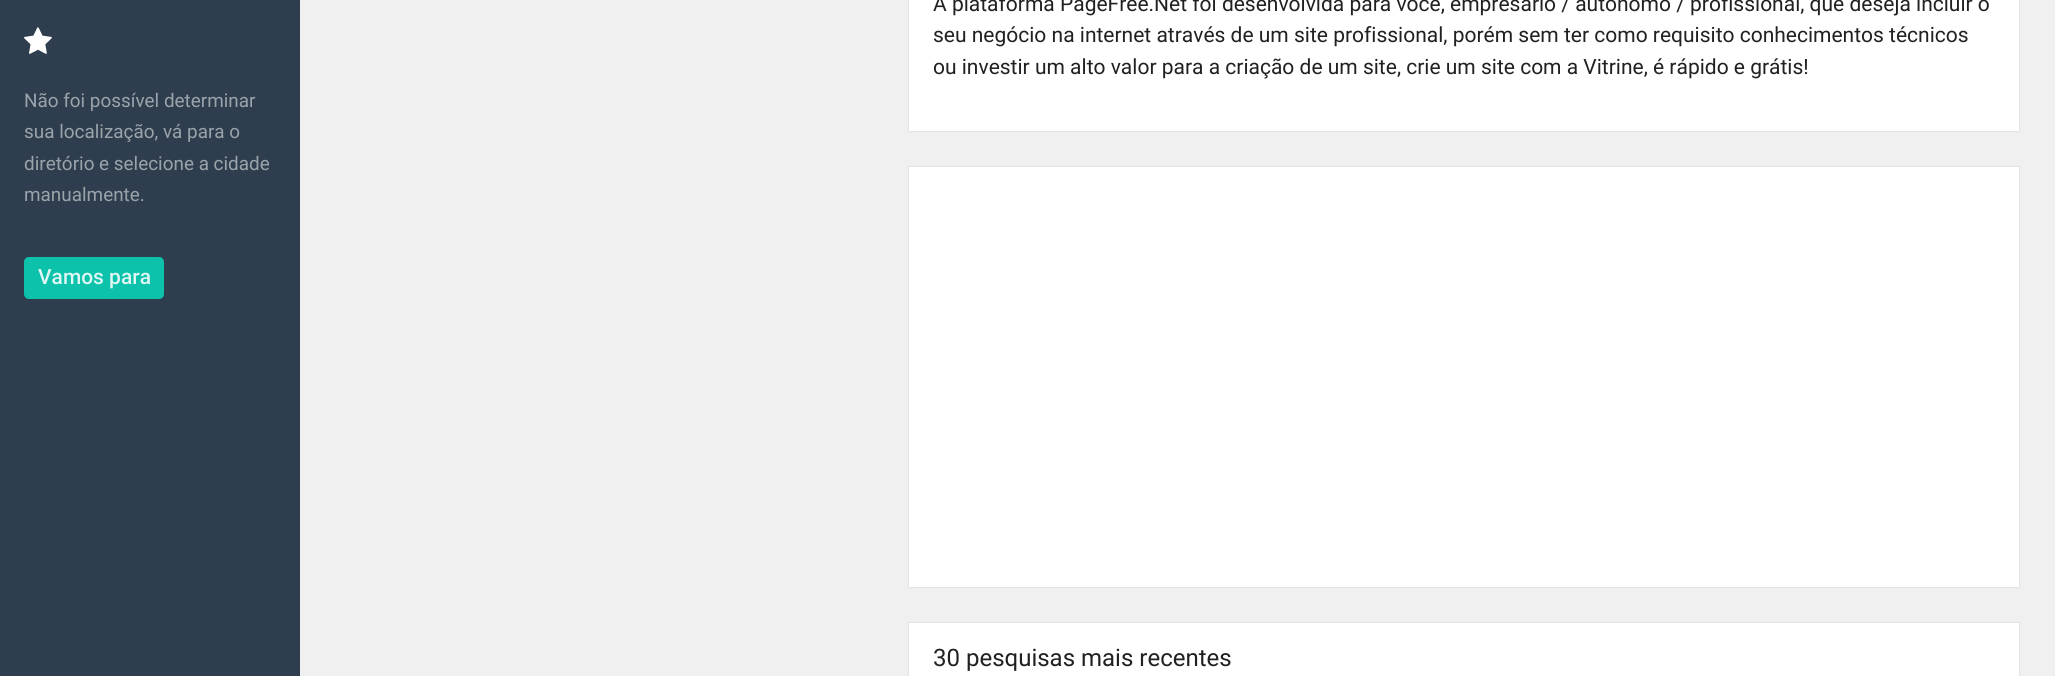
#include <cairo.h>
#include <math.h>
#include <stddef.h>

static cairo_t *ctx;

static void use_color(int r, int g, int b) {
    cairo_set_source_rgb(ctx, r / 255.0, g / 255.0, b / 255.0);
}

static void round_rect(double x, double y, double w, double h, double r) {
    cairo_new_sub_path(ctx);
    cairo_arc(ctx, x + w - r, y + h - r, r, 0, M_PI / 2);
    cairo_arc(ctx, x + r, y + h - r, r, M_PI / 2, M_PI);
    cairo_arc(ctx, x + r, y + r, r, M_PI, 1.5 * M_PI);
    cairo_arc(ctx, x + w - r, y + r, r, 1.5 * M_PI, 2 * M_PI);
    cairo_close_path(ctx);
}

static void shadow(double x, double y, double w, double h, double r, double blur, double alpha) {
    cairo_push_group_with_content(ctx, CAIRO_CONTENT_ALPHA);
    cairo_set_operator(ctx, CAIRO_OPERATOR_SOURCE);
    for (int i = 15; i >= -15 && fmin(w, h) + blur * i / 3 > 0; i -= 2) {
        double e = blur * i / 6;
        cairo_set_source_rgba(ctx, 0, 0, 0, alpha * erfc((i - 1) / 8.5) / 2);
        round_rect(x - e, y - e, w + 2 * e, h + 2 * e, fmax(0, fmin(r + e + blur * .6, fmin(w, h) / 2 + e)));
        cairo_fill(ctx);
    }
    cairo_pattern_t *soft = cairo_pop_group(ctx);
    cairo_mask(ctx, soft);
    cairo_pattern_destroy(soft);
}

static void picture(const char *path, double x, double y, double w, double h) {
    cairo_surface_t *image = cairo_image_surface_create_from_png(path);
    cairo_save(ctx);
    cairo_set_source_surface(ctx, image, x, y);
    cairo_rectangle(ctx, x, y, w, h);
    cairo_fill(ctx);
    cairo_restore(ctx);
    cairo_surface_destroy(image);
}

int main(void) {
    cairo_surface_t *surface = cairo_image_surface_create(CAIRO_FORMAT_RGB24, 2055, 676);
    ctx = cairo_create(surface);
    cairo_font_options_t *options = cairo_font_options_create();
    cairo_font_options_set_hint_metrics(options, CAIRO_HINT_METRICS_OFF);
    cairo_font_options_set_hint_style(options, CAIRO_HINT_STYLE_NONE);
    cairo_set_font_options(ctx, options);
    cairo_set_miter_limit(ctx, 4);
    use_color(240, 240, 240);
    cairo_paint(ctx);
    use_color(46, 62, 78);
    cairo_rectangle(ctx, 0, 0, 300, 676);
    cairo_fill(ctx);
    picture("img1.png", 24, 27, 28, 27);
    cairo_select_font_face(ctx, "Roboto", CAIRO_FONT_SLANT_NORMAL, CAIRO_FONT_WEIGHT_NORMAL);
    cairo_set_font_size(ctx, 18.9);
    use_color(155, 163, 170);
    cairo_move_to(ctx, 24, 107);
    cairo_show_text(ctx, "Não foi possível determinar");
    cairo_move_to(ctx, 24, 138);
    cairo_show_text(ctx, "sua localização, vá para o");
    cairo_move_to(ctx, 24, 170);
    cairo_show_text(ctx, "diretório e selecione a cidade");
    cairo_move_to(ctx, 24, 201);
    cairo_show_text(ctx, "manualmente.");
    use_color(12, 194, 170);
    round_rect(24, 257, 140, 42, 5);
    cairo_fill(ctx);
    cairo_select_font_face(ctx, "Roboto Medium", CAIRO_FONT_SLANT_NORMAL, CAIRO_FONT_WEIGHT_NORMAL);
    cairo_set_font_size(ctx, 21);
    use_color(223, 247, 244);
    cairo_move_to(ctx, 38, 284);
    cairo_show_text(ctx, "Vamos para");
    use_color(0, 0, 0);
    shadow(909, -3, 1110, 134, 0, 1, 0.15);
    use_color(255, 255, 255);
    cairo_rectangle(ctx, 909, 0, 1110, 131);
    cairo_fill(ctx);
    cairo_select_font_face(ctx, "Roboto", CAIRO_FONT_SLANT_NORMAL, CAIRO_FONT_WEIGHT_NORMAL);
    use_color(33, 33, 33);
    cairo_move_to(ctx, 933, 11);
    cairo_show_text(ctx, "A plataforma PageFree.Net foi desenvolvida para você, empresário / autonômo / profissional, que deseja incluir o");
    cairo_move_to(ctx, 933, 42);
    cairo_show_text(ctx, "seu negócio na internet através de um site profissional, porém sem ter como requisito conhecimentos técnicos");
    cairo_move_to(ctx, 933, 74);
    cairo_show_text(ctx, "ou investir um alto valor para a criação de um site, crie um site com a Vitrine, é rápido e grátis!");
    use_color(0, 0, 0);
    shadow(909, 167, 1110, 420, 0, 1, 0.15);
    use_color(255, 255, 255);
    cairo_rectangle(ctx, 909, 167, 1110, 420);
    cairo_fill(ctx);
    use_color(0, 0, 0);
    shadow(909, 623, 1110, 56, 0, 1, 0.15);
    use_color(255, 255, 255);
    cairo_rectangle(ctx, 909, 623, 1110, 53);
    cairo_fill(ctx);
    cairo_set_font_size(ctx, 24);
    use_color(33, 33, 33);
    cairo_move_to(ctx, 933, 666);
    cairo_show_text(ctx, "30 pesquisas mais recentes");
    cairo_surface_write_to_png(surface, "result.png");
    cairo_font_options_destroy(options);
    cairo_destroy(ctx);
    cairo_surface_destroy(surface);
    return 0;
}
